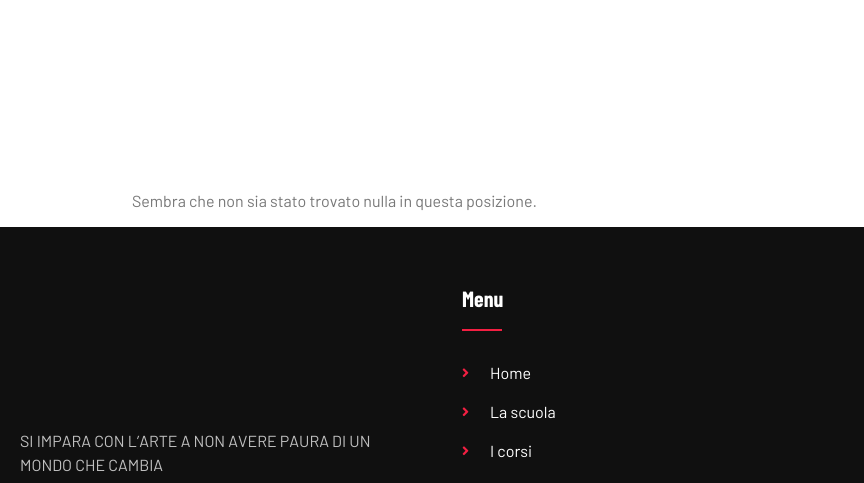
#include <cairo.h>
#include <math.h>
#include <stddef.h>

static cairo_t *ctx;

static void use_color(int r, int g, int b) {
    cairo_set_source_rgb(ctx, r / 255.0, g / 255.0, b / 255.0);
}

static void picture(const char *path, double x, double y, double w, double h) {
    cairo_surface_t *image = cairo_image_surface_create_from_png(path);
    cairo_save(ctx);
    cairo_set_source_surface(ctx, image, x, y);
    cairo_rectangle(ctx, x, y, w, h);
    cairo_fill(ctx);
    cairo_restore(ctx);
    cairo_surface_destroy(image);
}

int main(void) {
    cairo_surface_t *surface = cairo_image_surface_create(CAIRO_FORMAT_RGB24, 864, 483);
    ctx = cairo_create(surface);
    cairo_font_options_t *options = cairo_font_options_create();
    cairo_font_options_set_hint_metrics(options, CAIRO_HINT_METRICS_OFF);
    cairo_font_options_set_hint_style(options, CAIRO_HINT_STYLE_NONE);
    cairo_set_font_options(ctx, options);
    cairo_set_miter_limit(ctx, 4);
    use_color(255, 255, 255);
    cairo_paint(ctx);
    cairo_select_font_face(ctx, "Barlow", CAIRO_FONT_SLANT_NORMAL, CAIRO_FONT_WEIGHT_NORMAL);
    cairo_set_font_size(ctx, 16);
    use_color(119, 119, 119);
    cairo_move_to(ctx, 132, 207);
    cairo_show_text(ctx, "Sembra che non sia stato trovato nulla in questa posizione.");
    use_color(16, 16, 16);
    cairo_rectangle(ctx, 0, 227, 864, 256);
    cairo_fill(ctx);
    use_color(191, 191, 191);
    cairo_move_to(ctx, 20, 447);
    cairo_show_text(ctx, "SI IMPARA CON L’ARTE A NON AVERE PAURA DI UN");
    cairo_move_to(ctx, 20, 471);
    cairo_show_text(ctx, "MONDO CHE CAMBIA");
    cairo_select_font_face(ctx, "Barlow Condensed", CAIRO_FONT_SLANT_NORMAL, CAIRO_FONT_WEIGHT_BOLD);
    cairo_set_font_size(ctx, 22);
    use_color(255, 255, 255);
    cairo_move_to(ctx, 462, 307);
    cairo_show_text(ctx, "Menu");
    use_color(243, 31, 66);
    cairo_rectangle(ctx, 462, 329, 40, 2);
    cairo_fill(ctx);
    picture("img1.png", 462, 368, 7, 10);
    cairo_select_font_face(ctx, "Barlow", CAIRO_FONT_SLANT_NORMAL, CAIRO_FONT_WEIGHT_NORMAL);
    cairo_set_font_size(ctx, 16);
    use_color(255, 255, 255);
    cairo_move_to(ctx, 490, 379);
    cairo_show_text(ctx, "Home");
    picture("img1.png", 462, 407, 7, 10);
    cairo_move_to(ctx, 490, 418);
    cairo_show_text(ctx, "La scuola");
    picture("img1.png", 462, 446, 7, 10);
    cairo_move_to(ctx, 490, 457);
    cairo_show_text(ctx, "I corsi");
    cairo_surface_write_to_png(surface, "result.png");
    cairo_font_options_destroy(options);
    cairo_destroy(ctx);
    cairo_surface_destroy(surface);
    return 0;
}
